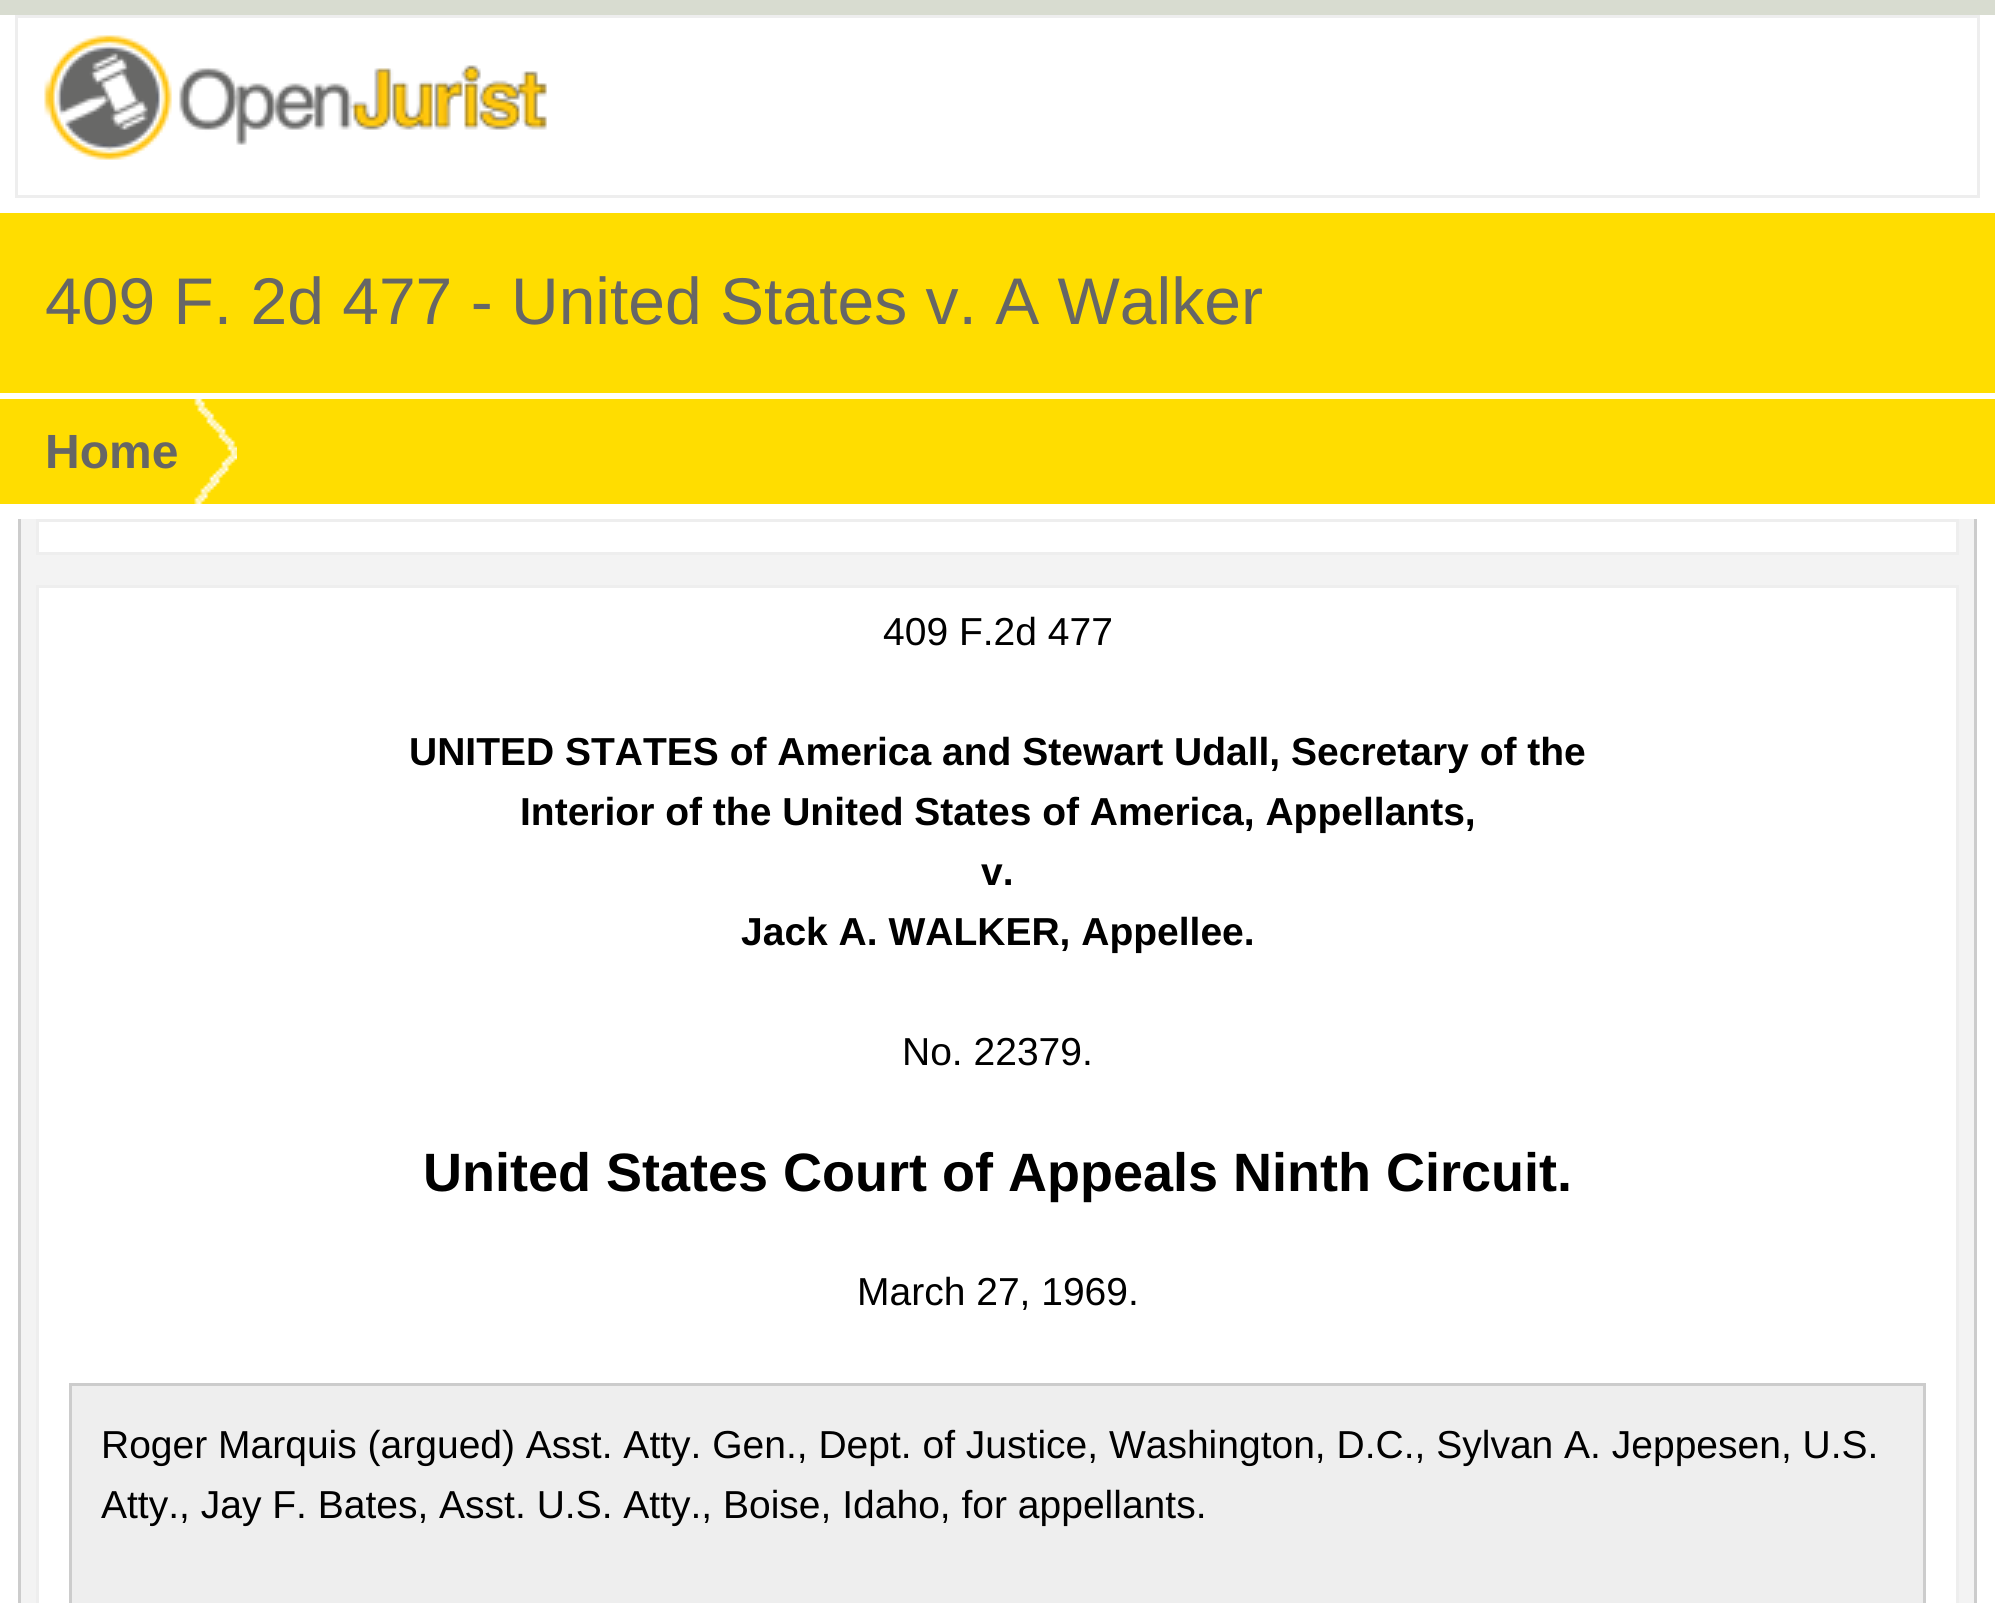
#include <cairo.h>
#include <math.h>
#include <stddef.h>

static cairo_t *ctx;

static void use_color(int r, int g, int b) {
    cairo_set_source_rgb(ctx, r / 255.0, g / 255.0, b / 255.0);
}

static void picture(const char *path, double x, double y, double w, double h) {
    cairo_surface_t *image = cairo_image_surface_create_from_png(path);
    cairo_save(ctx);
    cairo_set_source_surface(ctx, image, x, y);
    cairo_rectangle(ctx, x, y, w, h);
    cairo_fill(ctx);
    cairo_restore(ctx);
    cairo_surface_destroy(image);
}

int main(void) {
    cairo_surface_t *surface = cairo_image_surface_create(CAIRO_FORMAT_RGB24, 1995, 1603);
    ctx = cairo_create(surface);
    cairo_font_options_t *options = cairo_font_options_create();
    cairo_font_options_set_hint_metrics(options, CAIRO_HINT_METRICS_OFF);
    cairo_font_options_set_hint_style(options, CAIRO_HINT_STYLE_NONE);
    cairo_set_font_options(ctx, options);
    cairo_set_miter_limit(ctx, 4);
    use_color(216, 220, 208);
    cairo_paint(ctx);
    use_color(255, 255, 255);
    cairo_rectangle(ctx, 0, 15, 1995, 1588);
    cairo_fill(ctx);
    cairo_rectangle(ctx, 16.5, 16.5, 1962, 180);
    use_color(238, 238, 238);
    cairo_set_line_width(ctx, 3);
    cairo_stroke(ctx);
    picture("img1.png", 44, 35, 503, 125);
    use_color(255, 221, 0);
    cairo_rectangle(ctx, 0, 213, 1995, 180);
    cairo_fill(ctx);
    cairo_select_font_face(ctx, "Liberation Sans", CAIRO_FONT_SLANT_NORMAL, CAIRO_FONT_WEIGHT_NORMAL);
    cairo_set_font_size(ctx, 66);
    use_color(102, 102, 102);
    cairo_move_to(ctx, 45, 324);
    cairo_show_text(ctx, "409 F. 2d 477 - United States v. A Walker");
    use_color(255, 221, 0);
    cairo_rectangle(ctx, 0, 399, 1995, 105);
    cairo_fill(ctx);
    picture("img2.png", 194, 399, 43, 105);
    cairo_select_font_face(ctx, "Liberation Sans", CAIRO_FONT_SLANT_NORMAL, CAIRO_FONT_WEIGHT_BOLD);
    cairo_set_font_size(ctx, 48);
    use_color(102, 102, 102);
    cairo_move_to(ctx, 45, 468);
    cairo_show_text(ctx, "Home");
    use_color(243, 243, 243);
    cairo_rectangle(ctx, 21, 519, 1953, 1084);
    cairo_fill(ctx);
    use_color(204, 204, 204);
    cairo_rectangle(ctx, 1974, 519, 3, 1084);
    cairo_fill(ctx);
    cairo_rectangle(ctx, 18, 519, 3, 1084);
    cairo_fill(ctx);
    use_color(255, 255, 255);
    cairo_rectangle(ctx, 37.5, 520.5, 1920, 33);
    cairo_fill_preserve(ctx);
    use_color(238, 238, 238);
    cairo_stroke(ctx);
    use_color(255, 255, 255);
    cairo_rectangle(ctx, 37.5, 586.5, 1920, 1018);
    cairo_fill_preserve(ctx);
    use_color(238, 238, 238);
    cairo_stroke(ctx);
    cairo_select_font_face(ctx, "Liberation Sans", CAIRO_FONT_SLANT_NORMAL, CAIRO_FONT_WEIGHT_NORMAL);
    cairo_set_font_size(ctx, 39);
    use_color(0, 0, 0);
    cairo_move_to(ctx, 883, 645);
    cairo_show_text(ctx, "409 F.2d 477");
    cairo_select_font_face(ctx, "Liberation Sans", CAIRO_FONT_SLANT_NORMAL, CAIRO_FONT_WEIGHT_BOLD);
    cairo_move_to(ctx, 409, 765);
    cairo_show_text(ctx, "UNITED STATES of America and Stewart Udall, Secretary of the");
    cairo_move_to(ctx, 520, 825);
    cairo_show_text(ctx, "Interior of the United States of America, Appellants,");
    cairo_move_to(ctx, 981, 885);
    cairo_show_text(ctx, "v.");
    cairo_move_to(ctx, 741, 945);
    cairo_show_text(ctx, "Jack A. WALKER, Appellee.");
    cairo_select_font_face(ctx, "Liberation Sans", CAIRO_FONT_SLANT_NORMAL, CAIRO_FONT_WEIGHT_NORMAL);
    cairo_move_to(ctx, 902, 1065);
    cairo_show_text(ctx, "No. 22379.");
    cairo_select_font_face(ctx, "Liberation Sans", CAIRO_FONT_SLANT_NORMAL, CAIRO_FONT_WEIGHT_BOLD);
    cairo_set_font_size(ctx, 54);
    cairo_move_to(ctx, 423, 1191);
    cairo_show_text(ctx, "United States Court of Appeals Ninth Circuit.");
    cairo_select_font_face(ctx, "Liberation Sans", CAIRO_FONT_SLANT_NORMAL, CAIRO_FONT_WEIGHT_NORMAL);
    cairo_set_font_size(ctx, 39);
    cairo_move_to(ctx, 857, 1305);
    cairo_show_text(ctx, "March 27, 1969.");
    use_color(238, 238, 238);
    cairo_rectangle(ctx, 70.5, 1384.5, 1854, 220);
    cairo_fill_preserve(ctx);
    use_color(204, 204, 204);
    cairo_stroke(ctx);
    use_color(0, 0, 0);
    cairo_move_to(ctx, 101, 1458);
    cairo_show_text(ctx, "Roger Marquis (argued) Asst. Atty. Gen., Dept. of Justice, Washington, D.C., Sylvan A. Jeppesen, U.S.");
    cairo_move_to(ctx, 101, 1518);
    cairo_show_text(ctx, "Atty., Jay F. Bates, Asst. U.S. Atty., Boise, Idaho, for appellants.");
    cairo_surface_write_to_png(surface, "result.png");
    cairo_font_options_destroy(options);
    cairo_destroy(ctx);
    cairo_surface_destroy(surface);
    return 0;
}
